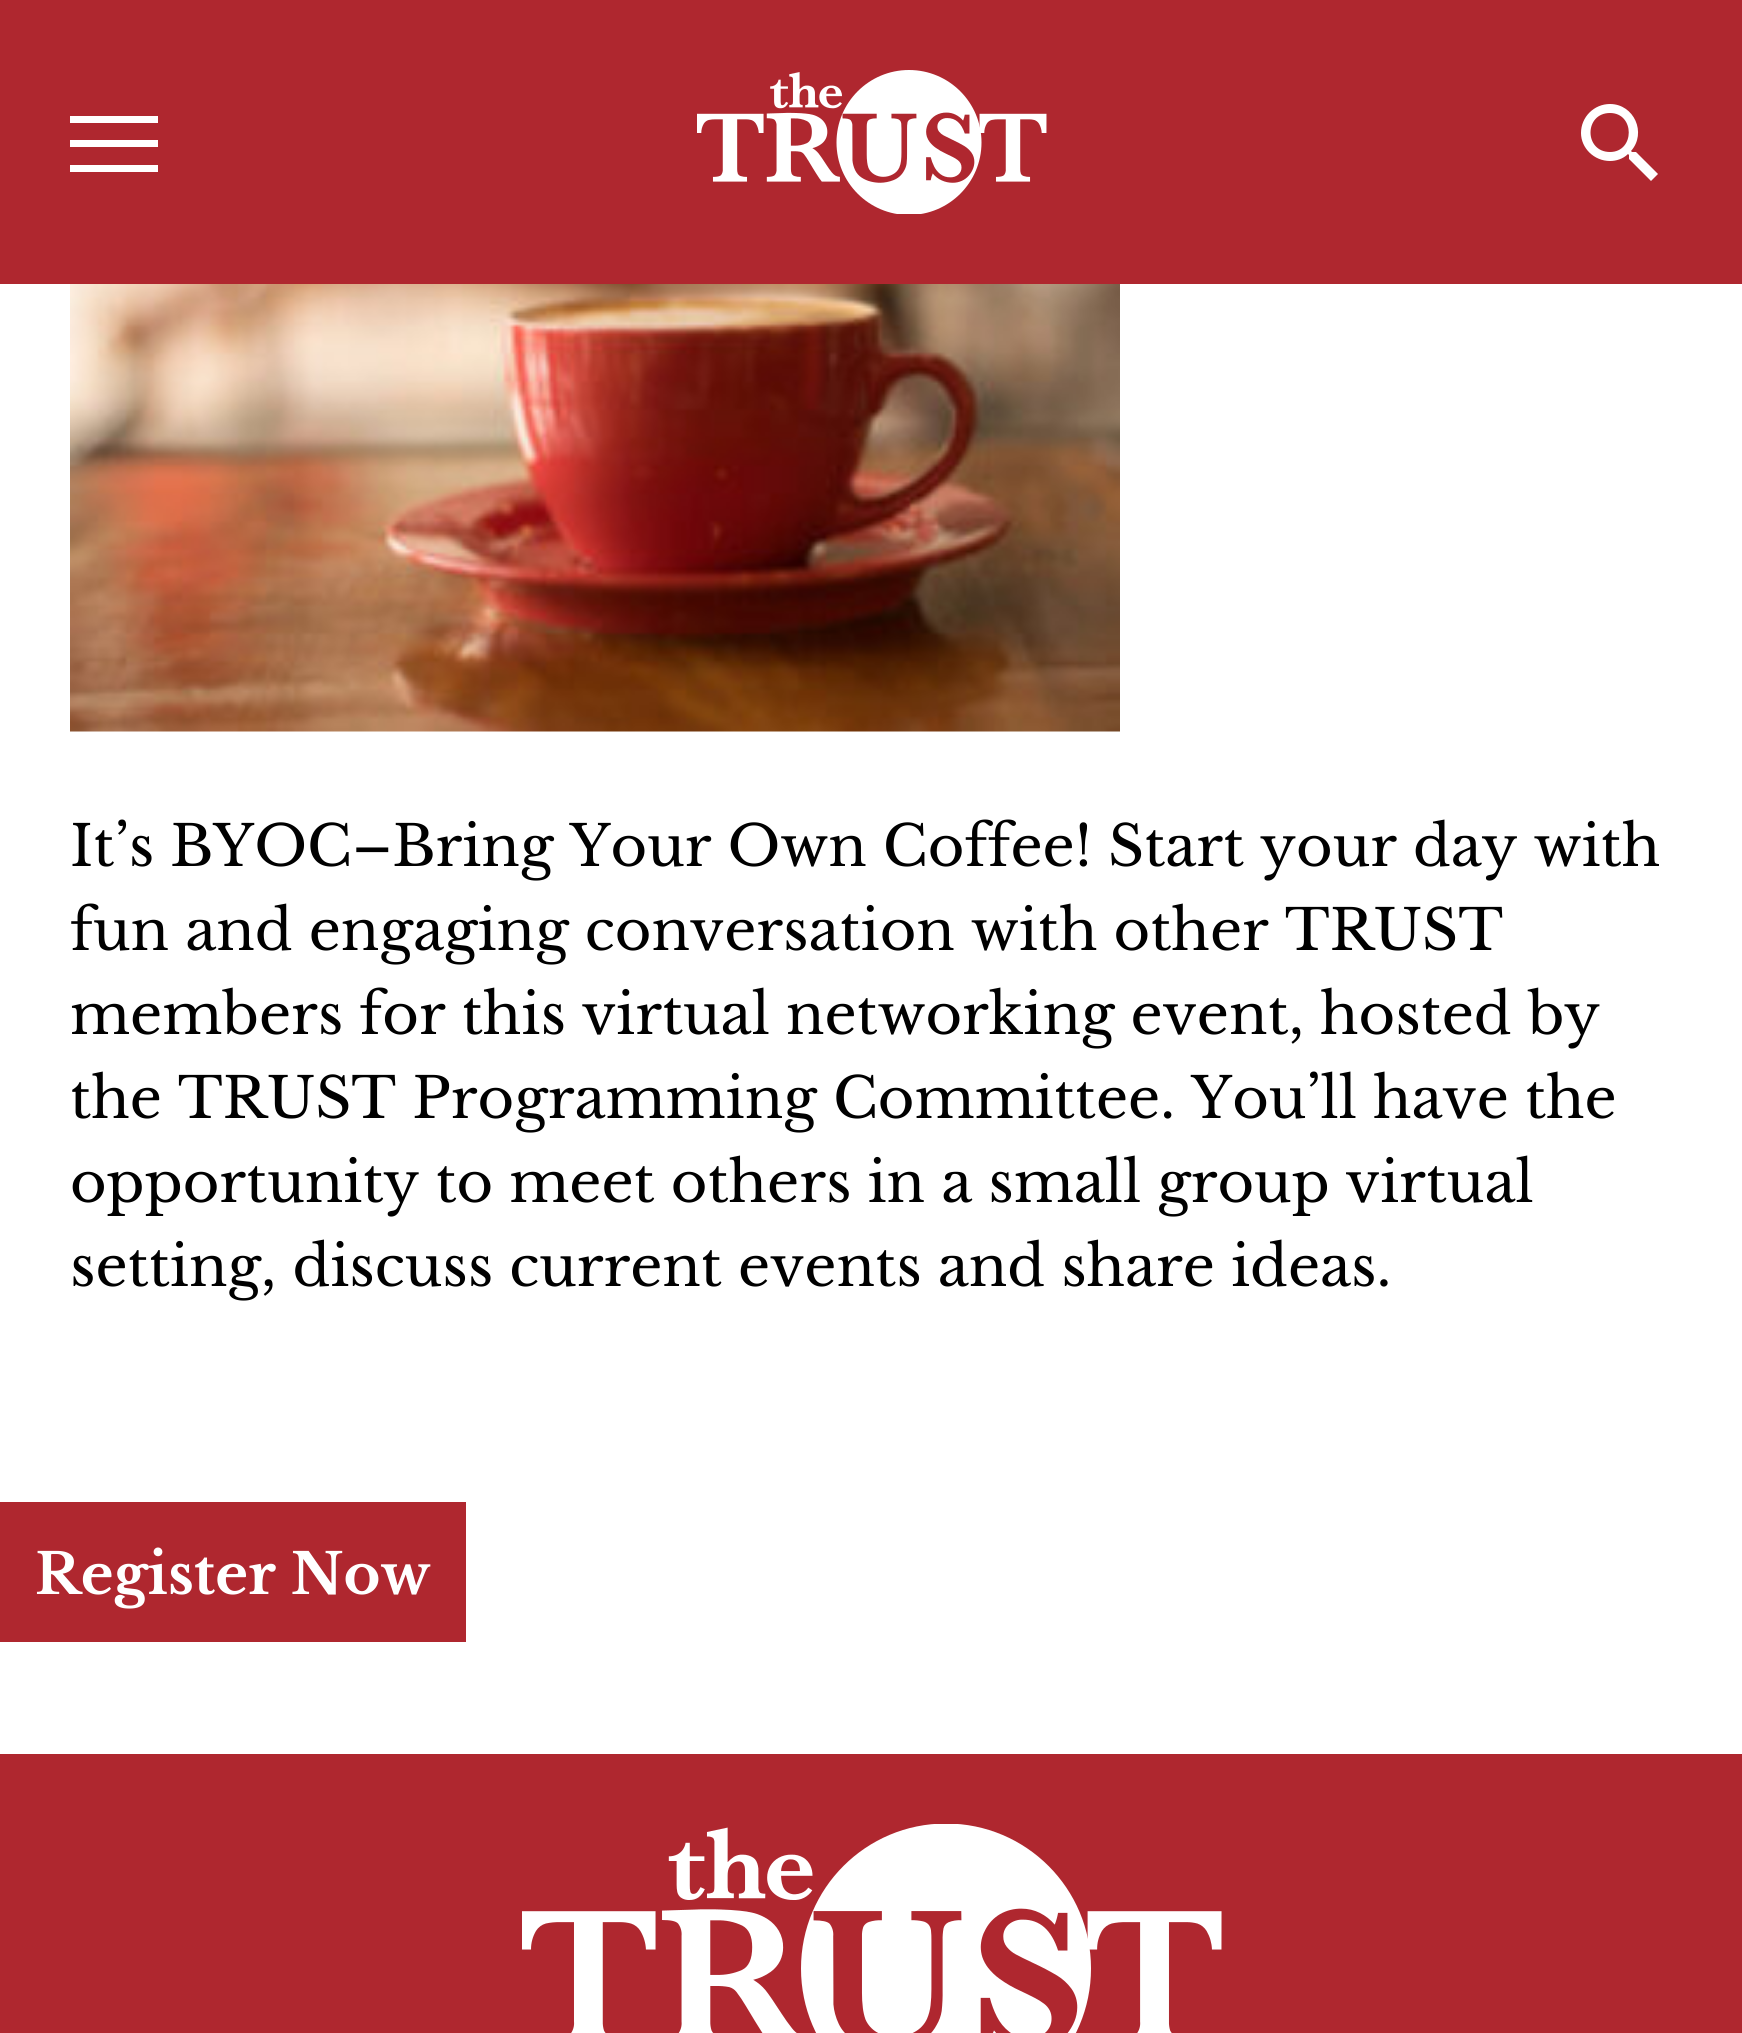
#include <cairo.h>
#include <math.h>
#include <stddef.h>

static cairo_t *ctx;

static void use_color(int r, int g, int b) {
    cairo_set_source_rgb(ctx, r / 255.0, g / 255.0, b / 255.0);
}

static void picture(const char *path, double x, double y, double w, double h) {
    cairo_surface_t *image = cairo_image_surface_create_from_png(path);
    cairo_save(ctx);
    cairo_set_source_surface(ctx, image, x, y);
    cairo_rectangle(ctx, x, y, w, h);
    cairo_fill(ctx);
    cairo_restore(ctx);
    cairo_surface_destroy(image);
}

int main(void) {
    cairo_surface_t *surface = cairo_image_surface_create(CAIRO_FORMAT_RGB24, 1742, 2033);
    ctx = cairo_create(surface);
    cairo_font_options_t *options = cairo_font_options_create();
    cairo_font_options_set_hint_metrics(options, CAIRO_HINT_METRICS_OFF);
    cairo_font_options_set_hint_style(options, CAIRO_HINT_STYLE_NONE);
    cairo_set_font_options(ctx, options);
    cairo_set_miter_limit(ctx, 4);
    use_color(255, 255, 255);
    cairo_paint(ctx);
    use_color(175, 39, 47);
    cairo_rectangle(ctx, 0, 0, 1742, 284);
    cairo_fill(ctx);
    use_color(255, 255, 255);
    cairo_rectangle(ctx, 70, 116, 88, 7);
    cairo_fill(ctx);
    cairo_rectangle(ctx, 70, 140, 88, 7);
    cairo_fill(ctx);
    cairo_rectangle(ctx, 70, 165, 88, 7);
    cairo_fill(ctx);
    picture("img1.png", 697, 70, 350, 144);
    cairo_new_path(ctx);
    cairo_move_to(ctx, 1610, 104);
    cairo_curve_to(ctx, 1634, 104, 1647, 133, 1631, 151);
    cairo_line_to(ctx, 1632, 152);
    cairo_line_to(ctx, 1636, 152);
    cairo_line_to(ctx, 1658, 174);
    cairo_line_to(ctx, 1651, 181);
    cairo_line_to(ctx, 1629, 159);
    cairo_line_to(ctx, 1629, 155);
    cairo_line_to(ctx, 1628, 154);
    cairo_curve_to(ctx, 1623, 159, 1616, 161, 1610, 161);
    cairo_curve_to(ctx, 1594, 161, 1581, 148, 1581, 133);
    cairo_curve_to(ctx, 1581, 117, 1594, 104, 1610, 104);
    cairo_move_to(ctx, 1610, 113);
    cairo_curve_to(ctx, 1584, 113, 1584, 152, 1610, 152);
    cairo_curve_to(ctx, 1635, 152, 1635, 113, 1610, 113);
    cairo_close_path(ctx);
    cairo_fill(ctx);
    picture("img2.png", 70, 284, 1050, 448);
    cairo_select_font_face(ctx, "Libre Baskerville", CAIRO_FONT_SLANT_NORMAL, CAIRO_FONT_WEIGHT_NORMAL);
    cairo_set_font_size(ctx, 56);
    use_color(0, 0, 0);
    cairo_move_to(ctx, 70, 866);
    cairo_show_text(ctx, "It’s BYOC–Bring Your Own Coffee! Start your day with");
    cairo_move_to(ctx, 70, 950);
    cairo_show_text(ctx, "fun and engaging conversation with other TRUST");
    cairo_move_to(ctx, 70, 1034);
    cairo_show_text(ctx, "members for this virtual networking event, hosted by");
    cairo_move_to(ctx, 70, 1118);
    cairo_show_text(ctx, "the TRUST Programming Committee. You’ll have the");
    cairo_move_to(ctx, 70, 1202);
    cairo_show_text(ctx, "opportunity to meet others in a small group virtual");
    cairo_move_to(ctx, 70, 1286);
    cairo_show_text(ctx, "setting, discuss current events and share ideas.");
    use_color(175, 39, 47);
    cairo_rectangle(ctx, 0, 1502, 466, 140);
    cairo_fill(ctx);
    cairo_select_font_face(ctx, "Libre Baskerville", CAIRO_FONT_SLANT_NORMAL, CAIRO_FONT_WEIGHT_BOLD);
    use_color(255, 255, 255);
    cairo_move_to(ctx, 35, 1594);
    cairo_show_text(ctx, "Register Now");
    use_color(175, 39, 47);
    cairo_rectangle(ctx, 0, 1754, 1742, 279);
    cairo_fill(ctx);
    picture("img3.png", 522, 1824, 700, 209);
    cairo_surface_write_to_png(surface, "result.png");
    cairo_font_options_destroy(options);
    cairo_destroy(ctx);
    cairo_surface_destroy(surface);
    return 0;
}
